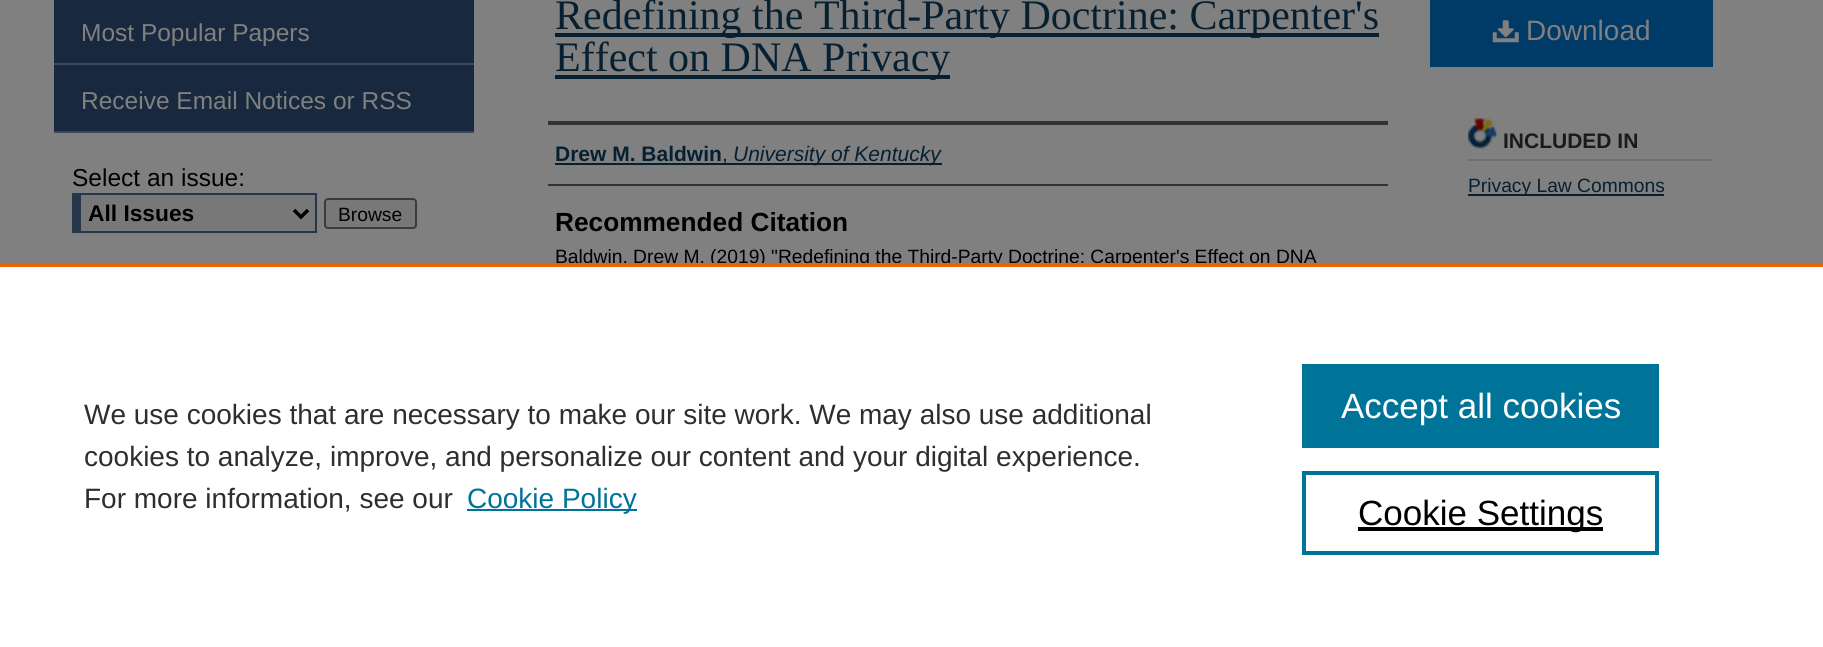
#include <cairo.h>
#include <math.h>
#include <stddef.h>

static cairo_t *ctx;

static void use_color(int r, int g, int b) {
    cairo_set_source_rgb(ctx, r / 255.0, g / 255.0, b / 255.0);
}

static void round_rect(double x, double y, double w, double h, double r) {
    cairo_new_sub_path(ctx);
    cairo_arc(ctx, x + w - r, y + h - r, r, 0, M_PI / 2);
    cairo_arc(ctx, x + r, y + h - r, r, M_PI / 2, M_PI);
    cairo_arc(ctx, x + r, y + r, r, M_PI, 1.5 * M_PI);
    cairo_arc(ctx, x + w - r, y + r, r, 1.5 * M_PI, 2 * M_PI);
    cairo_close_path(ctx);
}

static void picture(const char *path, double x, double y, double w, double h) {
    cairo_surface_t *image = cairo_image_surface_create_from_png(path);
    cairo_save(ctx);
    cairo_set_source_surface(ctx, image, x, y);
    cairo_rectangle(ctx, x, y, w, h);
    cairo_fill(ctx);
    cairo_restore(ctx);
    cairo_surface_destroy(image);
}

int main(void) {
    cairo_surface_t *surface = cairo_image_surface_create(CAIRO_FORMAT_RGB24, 1823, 647);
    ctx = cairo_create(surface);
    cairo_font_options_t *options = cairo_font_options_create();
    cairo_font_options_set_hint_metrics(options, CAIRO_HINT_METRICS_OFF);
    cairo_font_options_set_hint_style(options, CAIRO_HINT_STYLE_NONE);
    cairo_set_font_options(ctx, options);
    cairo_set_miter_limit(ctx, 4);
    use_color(128, 128, 128);
    cairo_paint(ctx);
    use_color(24, 40, 62);
    cairo_rectangle(ctx, 54, 0, 420, 63);
    cairo_fill(ctx);
    use_color(59, 73, 91);
    cairo_rectangle(ctx, 54, 63, 420, 2);
    cairo_fill(ctx);
    cairo_select_font_face(ctx, "Liberation Sans", CAIRO_FONT_SLANT_NORMAL, CAIRO_FONT_WEIGHT_NORMAL);
    cairo_set_font_size(ctx, 24.5);
    use_color(128, 128, 128);
    cairo_move_to(ctx, 81, 41);
    cairo_show_text(ctx, "Most Popular Papers");
    use_color(24, 40, 62);
    cairo_rectangle(ctx, 54, 65, 420, 66);
    cairo_fill(ctx);
    use_color(59, 73, 91);
    cairo_rectangle(ctx, 54, 131, 420, 2);
    cairo_fill(ctx);
    use_color(128, 128, 128);
    cairo_move_to(ctx, 81, 109);
    cairo_show_text(ctx, "Receive Email Notices or RSS");
    use_color(0, 0, 0);
    cairo_move_to(ctx, 72, 186);
    cairo_show_text(ctx, "Select an issue:");
    use_color(120, 120, 120);
    cairo_rectangle(ctx, 81, 195, 234, 36);
    cairo_fill(ctx);
    use_color(39, 55, 75);
    cairo_rectangle(ctx, 81, 193, 236, 2);
    cairo_fill(ctx);
    cairo_rectangle(ctx, 315, 193, 2, 40);
    cairo_fill(ctx);
    cairo_rectangle(ctx, 81, 231, 236, 2);
    cairo_fill(ctx);
    cairo_rectangle(ctx, 72, 193, 9, 40);
    cairo_fill(ctx);
    cairo_new_path(ctx);
    cairo_move_to(ctx, 294, 210);
    cairo_line_to(ctx, 301, 217);
    cairo_line_to(ctx, 308, 210);
    use_color(0, 0, 0);
    cairo_set_line_width(ctx, 3.5);
    cairo_stroke(ctx);
    cairo_select_font_face(ctx, "Liberation Sans", CAIRO_FONT_SLANT_NORMAL, CAIRO_FONT_WEIGHT_BOLD);
    cairo_set_font_size(ctx, 22.75);
    cairo_move_to(ctx, 88, 221);
    cairo_show_text(ctx, "All Issues");
    use_color(120, 120, 120);
    round_rect(325, 199, 91, 29, 3);
    cairo_fill_preserve(ctx);
    use_color(59, 59, 59);
    cairo_set_line_width(ctx, 2);
    cairo_stroke(ctx);
    cairo_select_font_face(ctx, "Liberation Sans", CAIRO_FONT_SLANT_NORMAL, CAIRO_FONT_WEIGHT_NORMAL);
    cairo_set_font_size(ctx, 19.25);
    use_color(0, 0, 0);
    cairo_move_to(ctx, 338, 221);
    cairo_show_text(ctx, "Browse");
    use_color(7, 32, 49);
    cairo_rectangle(ctx, 555, 33, 824, 4);
    cairo_fill(ctx);
    cairo_select_font_face(ctx, "Liberation Serif", CAIRO_FONT_SLANT_NORMAL, CAIRO_FONT_WEIGHT_NORMAL);
    cairo_set_font_size(ctx, 42);
    cairo_move_to(ctx, 555, 29);
    cairo_show_text(ctx, "Redefining the Third-Party Doctrine: Carpenter's");
    cairo_rectangle(ctx, 555, 75, 395, 4);
    cairo_fill(ctx);
    cairo_move_to(ctx, 555, 71);
    cairo_show_text(ctx, "Effect on DNA Privacy");
    use_color(51, 51, 51);
    cairo_rectangle(ctx, 548, 121, 840, 4);
    cairo_fill(ctx);
    cairo_rectangle(ctx, 548, 184, 840, 2);
    cairo_fill(ctx);
    cairo_select_font_face(ctx, "Liberation Sans", CAIRO_FONT_SLANT_NORMAL, CAIRO_FONT_WEIGHT_BOLD);
    cairo_set_font_size(ctx, 21);
    use_color(7, 32, 49);
    cairo_move_to(ctx, 555, 161);
    cairo_show_text(ctx, "Drew M. Baldwin");
    cairo_rectangle(ctx, 555, 163, 387, 2);
    cairo_fill(ctx);
    cairo_select_font_face(ctx, "Liberation Sans", CAIRO_FONT_SLANT_NORMAL, CAIRO_FONT_WEIGHT_NORMAL);
    cairo_move_to(ctx, 722, 161);
    cairo_show_text(ctx, ",");
    cairo_select_font_face(ctx, "Liberation Sans", CAIRO_FONT_SLANT_ITALIC, CAIRO_FONT_WEIGHT_NORMAL);
    cairo_move_to(ctx, 733, 161);
    cairo_show_text(ctx, "University of Kentucky");
    cairo_select_font_face(ctx, "Liberation Sans", CAIRO_FONT_SLANT_NORMAL, CAIRO_FONT_WEIGHT_BOLD);
    cairo_set_font_size(ctx, 26.25);
    use_color(0, 0, 0);
    cairo_move_to(ctx, 555, 231);
    cairo_show_text(ctx, "Recommended Citation");
    cairo_select_font_face(ctx, "Liberation Sans", CAIRO_FONT_SLANT_NORMAL, CAIRO_FONT_WEIGHT_NORMAL);
    cairo_set_font_size(ctx, 19.25);
    cairo_move_to(ctx, 555, 263);
    cairo_show_text(ctx, "Baldwin, Drew M. (2019) \"Redefining the Third-Party Doctrine: Carpenter's Effect on DNA");
    use_color(0, 58, 102);
    cairo_rectangle(ctx, 1430, 0, 283, 67);
    cairo_fill(ctx);
    picture("img1.png", 1492, 20, 27, 23);
    cairo_set_font_size(ctx, 28);
    use_color(128, 128, 128);
    cairo_move_to(ctx, 1526, 40);
    cairo_show_text(ctx, "Download");
    picture("img2.png", 1468, 118, 29, 31);
    use_color(111, 111, 111);
    cairo_rectangle(ctx, 1468, 159, 245, 2);
    cairo_fill(ctx);
    cairo_select_font_face(ctx, "Liberation Sans", CAIRO_FONT_SLANT_NORMAL, CAIRO_FONT_WEIGHT_BOLD);
    cairo_set_font_size(ctx, 21);
    use_color(26, 26, 26);
    cairo_move_to(ctx, 1503, 148);
    cairo_show_text(ctx, "INCLUDED IN");
    use_color(7, 32, 49);
    cairo_rectangle(ctx, 1468, 194, 196, 2);
    cairo_fill(ctx);
    cairo_select_font_face(ctx, "Liberation Sans", CAIRO_FONT_SLANT_NORMAL, CAIRO_FONT_WEIGHT_NORMAL);
    cairo_set_font_size(ctx, 19.25);
    cairo_move_to(ctx, 1468, 192);
    cairo_show_text(ctx, "Privacy Law Commons");
    use_color(255, 255, 255);
    cairo_rectangle(ctx, 0, 267, 1823, 380);
    cairo_fill(ctx);
    use_color(235, 101, 0);
    cairo_rectangle(ctx, 0, 263, 1823, 4);
    cairo_fill(ctx);
    cairo_set_font_size(ctx, 28);
    use_color(46, 46, 46);
    cairo_move_to(ctx, 84, 424);
    cairo_show_text(ctx, "We use cookies that are necessary to make our site work. We may also use additional");
    cairo_move_to(ctx, 84, 466);
    cairo_show_text(ctx, "cookies to analyze, improve, and personalize our content and your digital experience.");
    cairo_move_to(ctx, 84, 508);
    cairo_show_text(ctx, "For more information, see our");
    use_color(0, 115, 152);
    cairo_rectangle(ctx, 467, 509, 170, 2);
    cairo_fill(ctx);
    cairo_move_to(ctx, 467, 508);
    cairo_show_text(ctx, "Cookie Policy");
    cairo_rectangle(ctx, 1302, 364, 357, 84);
    cairo_fill(ctx);
    cairo_set_font_size(ctx, 35);
    use_color(255, 255, 255);
    cairo_move_to(ctx, 1341, 418);
    cairo_show_text(ctx, "Accept all cookies");
    cairo_rectangle(ctx, 1304, 473, 353, 80);
    use_color(0, 115, 152);
    cairo_set_line_width(ctx, 4);
    cairo_stroke(ctx);
    use_color(0, 0, 0);
    cairo_rectangle(ctx, 1358, 527, 245, 4);
    cairo_fill(ctx);
    cairo_move_to(ctx, 1358, 525);
    cairo_show_text(ctx, "Cookie Settings");
    cairo_surface_write_to_png(surface, "result.png");
    cairo_font_options_destroy(options);
    cairo_destroy(ctx);
    cairo_surface_destroy(surface);
    return 0;
}
